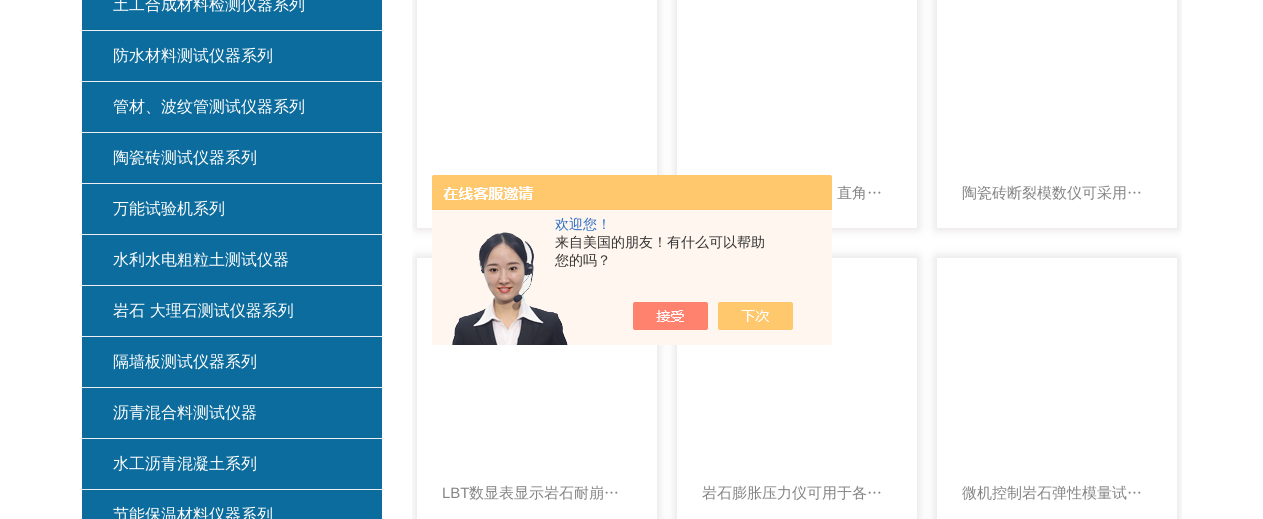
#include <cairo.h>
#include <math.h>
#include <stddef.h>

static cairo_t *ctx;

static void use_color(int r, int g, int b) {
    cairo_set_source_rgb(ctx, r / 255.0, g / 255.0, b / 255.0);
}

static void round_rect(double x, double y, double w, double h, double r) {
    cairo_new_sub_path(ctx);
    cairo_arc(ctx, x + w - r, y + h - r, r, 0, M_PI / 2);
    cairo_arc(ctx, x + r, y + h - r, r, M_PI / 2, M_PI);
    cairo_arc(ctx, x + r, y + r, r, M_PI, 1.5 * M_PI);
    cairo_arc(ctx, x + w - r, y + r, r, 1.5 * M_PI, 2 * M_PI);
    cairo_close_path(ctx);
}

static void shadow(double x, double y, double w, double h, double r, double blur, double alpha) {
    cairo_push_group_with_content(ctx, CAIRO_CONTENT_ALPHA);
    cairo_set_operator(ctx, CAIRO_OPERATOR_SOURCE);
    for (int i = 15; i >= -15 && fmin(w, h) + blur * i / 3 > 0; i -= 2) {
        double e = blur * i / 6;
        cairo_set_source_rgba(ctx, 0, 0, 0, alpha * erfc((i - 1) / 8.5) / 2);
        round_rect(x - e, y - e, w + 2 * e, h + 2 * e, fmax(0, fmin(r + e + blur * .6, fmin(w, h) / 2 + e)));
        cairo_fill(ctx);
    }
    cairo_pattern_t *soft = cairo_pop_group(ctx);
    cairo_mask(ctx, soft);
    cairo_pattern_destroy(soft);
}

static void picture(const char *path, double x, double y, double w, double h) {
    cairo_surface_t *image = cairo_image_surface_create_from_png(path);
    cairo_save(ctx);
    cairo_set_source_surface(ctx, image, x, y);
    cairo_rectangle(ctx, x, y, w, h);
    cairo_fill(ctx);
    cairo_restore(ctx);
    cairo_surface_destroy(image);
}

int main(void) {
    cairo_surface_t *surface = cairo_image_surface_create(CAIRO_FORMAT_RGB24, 1263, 519);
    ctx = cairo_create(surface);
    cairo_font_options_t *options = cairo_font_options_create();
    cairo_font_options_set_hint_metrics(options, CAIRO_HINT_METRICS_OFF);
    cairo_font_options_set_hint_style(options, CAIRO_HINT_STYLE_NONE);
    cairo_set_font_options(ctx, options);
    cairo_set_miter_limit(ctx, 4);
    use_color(255, 255, 255);
    cairo_paint(ctx);
    use_color(238, 238, 238);
    cairo_rectangle(ctx, 82, 30, 300, 1);
    cairo_fill(ctx);
    use_color(12, 108, 157);
    cairo_rectangle(ctx, 82, 0, 300, 30);
    cairo_fill(ctx);
    cairo_select_font_face(ctx, "WenQuanYi Zen Hei Medium", CAIRO_FONT_SLANT_NORMAL, CAIRO_FONT_WEIGHT_NORMAL);
    cairo_set_font_size(ctx, 16);
    use_color(255, 255, 255);
    cairo_move_to(ctx, 113, 10);
    cairo_show_text(ctx, "土工合成材料检测仪器系列");
    use_color(238, 238, 238);
    cairo_rectangle(ctx, 82, 81, 300, 1);
    cairo_fill(ctx);
    use_color(12, 108, 157);
    cairo_rectangle(ctx, 82, 31, 300, 50);
    cairo_fill(ctx);
    use_color(255, 255, 255);
    cairo_move_to(ctx, 113, 61);
    cairo_show_text(ctx, "防水材料测试仪器系列");
    use_color(238, 238, 238);
    cairo_rectangle(ctx, 82, 132, 300, 1);
    cairo_fill(ctx);
    use_color(12, 108, 157);
    cairo_rectangle(ctx, 82, 82, 300, 50);
    cairo_fill(ctx);
    use_color(255, 255, 255);
    cairo_move_to(ctx, 113, 112);
    cairo_show_text(ctx, "管材、波纹管测试仪器系列");
    use_color(238, 238, 238);
    cairo_rectangle(ctx, 82, 183, 300, 1);
    cairo_fill(ctx);
    use_color(12, 108, 157);
    cairo_rectangle(ctx, 82, 133, 300, 50);
    cairo_fill(ctx);
    use_color(255, 255, 255);
    cairo_move_to(ctx, 113, 163);
    cairo_show_text(ctx, "陶瓷砖测试仪器系列");
    use_color(238, 238, 238);
    cairo_rectangle(ctx, 82, 234, 300, 1);
    cairo_fill(ctx);
    use_color(12, 108, 157);
    cairo_rectangle(ctx, 82, 184, 300, 50);
    cairo_fill(ctx);
    use_color(255, 255, 255);
    cairo_move_to(ctx, 113, 214);
    cairo_show_text(ctx, "万能试验机系列");
    use_color(238, 238, 238);
    cairo_rectangle(ctx, 82, 285, 300, 1);
    cairo_fill(ctx);
    use_color(12, 108, 157);
    cairo_rectangle(ctx, 82, 235, 300, 50);
    cairo_fill(ctx);
    use_color(255, 255, 255);
    cairo_move_to(ctx, 113, 265);
    cairo_show_text(ctx, "水利水电粗粒土测试仪器");
    use_color(238, 238, 238);
    cairo_rectangle(ctx, 82, 336, 300, 1);
    cairo_fill(ctx);
    use_color(12, 108, 157);
    cairo_rectangle(ctx, 82, 286, 300, 50);
    cairo_fill(ctx);
    use_color(255, 255, 255);
    cairo_move_to(ctx, 113, 316);
    cairo_show_text(ctx, "岩石 大理石测试仪器系列");
    use_color(238, 238, 238);
    cairo_rectangle(ctx, 82, 387, 300, 1);
    cairo_fill(ctx);
    use_color(12, 108, 157);
    cairo_rectangle(ctx, 82, 337, 300, 50);
    cairo_fill(ctx);
    use_color(255, 255, 255);
    cairo_move_to(ctx, 113, 367);
    cairo_show_text(ctx, "隔墙板测试仪器系列");
    use_color(238, 238, 238);
    cairo_rectangle(ctx, 82, 438, 300, 1);
    cairo_fill(ctx);
    use_color(12, 108, 157);
    cairo_rectangle(ctx, 82, 388, 300, 50);
    cairo_fill(ctx);
    use_color(255, 255, 255);
    cairo_move_to(ctx, 113, 418);
    cairo_show_text(ctx, "沥青混合料测试仪器");
    use_color(238, 238, 238);
    cairo_rectangle(ctx, 82, 489, 300, 1);
    cairo_fill(ctx);
    use_color(12, 108, 157);
    cairo_rectangle(ctx, 82, 439, 300, 50);
    cairo_fill(ctx);
    use_color(255, 255, 255);
    cairo_move_to(ctx, 113, 469);
    cairo_show_text(ctx, "水工沥青混凝土系列");
    use_color(12, 108, 157);
    cairo_rectangle(ctx, 82, 490, 300, 29);
    cairo_fill(ctx);
    use_color(255, 255, 255);
    cairo_move_to(ctx, 113, 520);
    cairo_show_text(ctx, "节能保温材料仪器系列");
    cairo_save(ctx);
    cairo_rectangle(ctx, 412, 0, 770, 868);
    cairo_clip(ctx);
    cairo_set_fill_rule(ctx, CAIRO_FILL_RULE_EVEN_ODD);
    cairo_new_path(ctx);
    cairo_move_to(ctx, 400, 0);
    cairo_line_to(ctx, 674, 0);
    cairo_line_to(ctx, 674, 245);
    cairo_line_to(ctx, 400, 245);
    cairo_close_path(ctx);
    cairo_move_to(ctx, 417, -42);
    cairo_line_to(ctx, 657, -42);
    cairo_line_to(ctx, 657, 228);
    cairo_line_to(ctx, 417, 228);
    cairo_close_path(ctx);
    cairo_clip(ctx);
    use_color(225, 221, 221);
    shadow(416, -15, 242, 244, 0, 5, 1);
    cairo_restore(ctx);
    cairo_save(ctx);
    cairo_set_fill_rule(ctx, CAIRO_FILL_RULE_EVEN_ODD);
    cairo_new_path(ctx);
    cairo_move_to(ctx, 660, 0);
    cairo_line_to(ctx, 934, 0);
    cairo_line_to(ctx, 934, 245);
    cairo_line_to(ctx, 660, 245);
    cairo_close_path(ctx);
    cairo_move_to(ctx, 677, -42);
    cairo_line_to(ctx, 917, -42);
    cairo_line_to(ctx, 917, 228);
    cairo_line_to(ctx, 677, 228);
    cairo_close_path(ctx);
    cairo_clip(ctx);
    use_color(225, 221, 221);
    shadow(676, -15, 242, 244, 0, 5, 1);
    cairo_restore(ctx);
    cairo_set_font_size(ctx, 15);
    use_color(132, 132, 132);
    cairo_move_to(ctx, 837, 198);
    cairo_show_text(ctx, "直角…");
    cairo_save(ctx);
    cairo_rectangle(ctx, 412, 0, 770, 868);
    cairo_clip(ctx);
    cairo_set_fill_rule(ctx, CAIRO_FILL_RULE_EVEN_ODD);
    cairo_new_path(ctx);
    cairo_move_to(ctx, 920, 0);
    cairo_line_to(ctx, 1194, 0);
    cairo_line_to(ctx, 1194, 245);
    cairo_line_to(ctx, 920, 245);
    cairo_close_path(ctx);
    cairo_move_to(ctx, 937, -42);
    cairo_line_to(ctx, 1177, -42);
    cairo_line_to(ctx, 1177, 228);
    cairo_line_to(ctx, 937, 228);
    cairo_close_path(ctx);
    cairo_clip(ctx);
    use_color(225, 221, 221);
    shadow(936, -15, 242, 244, 0, 5, 1);
    cairo_restore(ctx);
    cairo_move_to(ctx, 962, 198);
    cairo_show_text(ctx, "陶瓷砖断裂模数仪可采用…");
    cairo_save(ctx);
    cairo_rectangle(ctx, 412, 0, 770, 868);
    cairo_clip(ctx);
    cairo_set_fill_rule(ctx, CAIRO_FILL_RULE_EVEN_ODD);
    cairo_new_path(ctx);
    cairo_move_to(ctx, 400, 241);
    cairo_line_to(ctx, 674, 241);
    cairo_line_to(ctx, 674, 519);
    cairo_line_to(ctx, 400, 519);
    cairo_close_path(ctx);
    cairo_move_to(ctx, 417, 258);
    cairo_line_to(ctx, 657, 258);
    cairo_line_to(ctx, 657, 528);
    cairo_line_to(ctx, 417, 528);
    cairo_close_path(ctx);
    cairo_clip(ctx);
    use_color(225, 221, 221);
    shadow(416, 257, 242, 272, 0, 5, 1);
    cairo_restore(ctx);
    cairo_select_font_face(ctx, "Liberation Sans", CAIRO_FONT_SLANT_NORMAL, CAIRO_FONT_WEIGHT_NORMAL);
    cairo_move_to(ctx, 442, 498);
    cairo_show_text(ctx, "LBT");
    cairo_select_font_face(ctx, "WenQuanYi Zen Hei Medium", CAIRO_FONT_SLANT_NORMAL, CAIRO_FONT_WEIGHT_NORMAL);
    cairo_move_to(ctx, 469, 498);
    cairo_show_text(ctx, "数显表显示岩石耐崩…");
    cairo_save(ctx);
    cairo_set_fill_rule(ctx, CAIRO_FILL_RULE_EVEN_ODD);
    cairo_new_path(ctx);
    cairo_move_to(ctx, 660, 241);
    cairo_line_to(ctx, 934, 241);
    cairo_line_to(ctx, 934, 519);
    cairo_line_to(ctx, 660, 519);
    cairo_close_path(ctx);
    cairo_move_to(ctx, 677, 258);
    cairo_line_to(ctx, 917, 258);
    cairo_line_to(ctx, 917, 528);
    cairo_line_to(ctx, 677, 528);
    cairo_close_path(ctx);
    cairo_clip(ctx);
    use_color(225, 221, 221);
    shadow(676, 257, 242, 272, 0, 5, 1);
    cairo_restore(ctx);
    cairo_move_to(ctx, 702, 498);
    cairo_show_text(ctx, "岩石膨胀压力仪可用于各…");
    cairo_save(ctx);
    cairo_rectangle(ctx, 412, 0, 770, 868);
    cairo_clip(ctx);
    cairo_set_fill_rule(ctx, CAIRO_FILL_RULE_EVEN_ODD);
    cairo_new_path(ctx);
    cairo_move_to(ctx, 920, 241);
    cairo_line_to(ctx, 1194, 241);
    cairo_line_to(ctx, 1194, 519);
    cairo_line_to(ctx, 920, 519);
    cairo_close_path(ctx);
    cairo_move_to(ctx, 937, 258);
    cairo_line_to(ctx, 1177, 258);
    cairo_line_to(ctx, 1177, 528);
    cairo_line_to(ctx, 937, 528);
    cairo_close_path(ctx);
    cairo_clip(ctx);
    use_color(225, 221, 221);
    shadow(936, 257, 242, 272, 0, 5, 1);
    cairo_restore(ctx);
    cairo_move_to(ctx, 962, 498);
    cairo_show_text(ctx, "微机控制岩石弹性模量试…");
    picture("img1.png", 432, 175, 400, 170);
    cairo_set_font_size(ctx, 14);
    use_color(46, 110, 198);
    cairo_move_to(ctx, 555, 229);
    cairo_show_text(ctx, "欢迎您！");
    use_color(51, 51, 51);
    cairo_move_to(ctx, 555, 247);
    cairo_show_text(ctx, "来自美国的朋友！有什么可以帮助");
    cairo_move_to(ctx, 555, 265);
    cairo_show_text(ctx, "您的吗？");
    cairo_surface_write_to_png(surface, "result.png");
    cairo_font_options_destroy(options);
    cairo_destroy(ctx);
    cairo_surface_destroy(surface);
    return 0;
}
